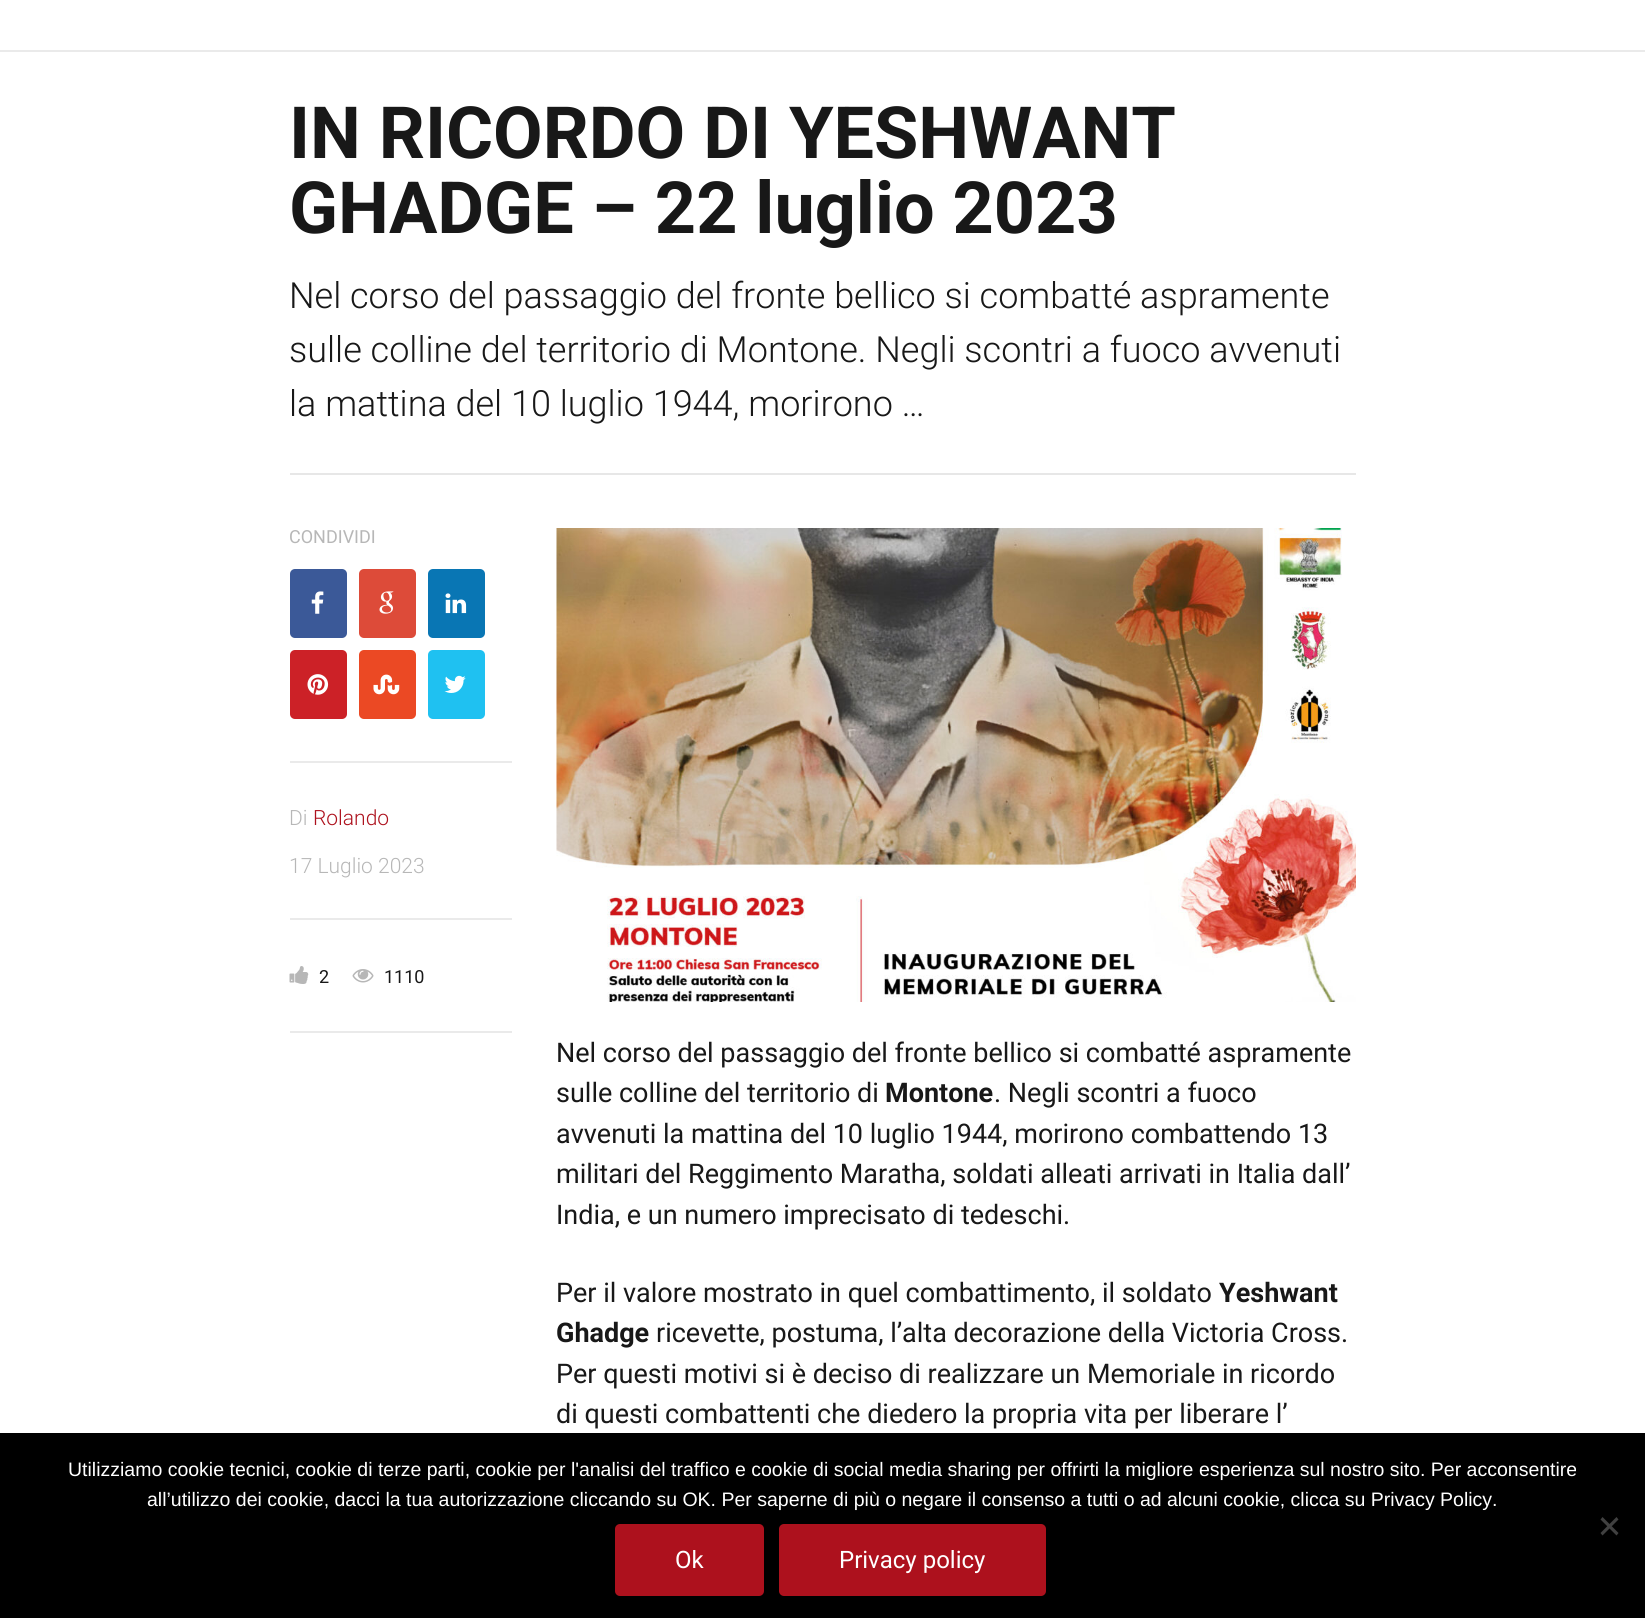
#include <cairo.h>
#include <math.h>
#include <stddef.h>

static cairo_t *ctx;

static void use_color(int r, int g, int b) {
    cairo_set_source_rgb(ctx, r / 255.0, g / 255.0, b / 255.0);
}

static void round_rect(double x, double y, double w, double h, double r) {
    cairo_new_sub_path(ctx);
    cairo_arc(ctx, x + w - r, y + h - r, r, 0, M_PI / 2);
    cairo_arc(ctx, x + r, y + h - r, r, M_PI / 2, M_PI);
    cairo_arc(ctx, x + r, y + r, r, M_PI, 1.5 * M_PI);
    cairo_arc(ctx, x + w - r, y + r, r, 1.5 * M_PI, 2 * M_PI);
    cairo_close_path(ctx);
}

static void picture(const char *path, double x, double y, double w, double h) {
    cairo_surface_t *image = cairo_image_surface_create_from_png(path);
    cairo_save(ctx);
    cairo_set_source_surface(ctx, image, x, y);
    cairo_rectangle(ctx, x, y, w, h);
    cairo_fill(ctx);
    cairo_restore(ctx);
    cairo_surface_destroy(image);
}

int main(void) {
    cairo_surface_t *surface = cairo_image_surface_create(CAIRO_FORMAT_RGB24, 1645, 1618);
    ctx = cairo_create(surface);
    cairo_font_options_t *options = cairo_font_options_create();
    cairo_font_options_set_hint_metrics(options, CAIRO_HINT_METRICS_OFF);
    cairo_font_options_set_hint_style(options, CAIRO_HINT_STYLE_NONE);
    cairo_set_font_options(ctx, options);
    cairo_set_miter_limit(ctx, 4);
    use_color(255, 255, 255);
    cairo_paint(ctx);
    use_color(234, 234, 234);
    cairo_rectangle(ctx, 0, 50, 1645, 2);
    cairo_fill(ctx);
    use_color(231, 231, 231);
    cairo_rectangle(ctx, 290, 473, 1066, 2);
    cairo_fill(ctx);
    cairo_select_font_face(ctx, "Roboto", CAIRO_FONT_SLANT_NORMAL, CAIRO_FONT_WEIGHT_BOLD);
    cairo_set_font_size(ctx, 72);
    use_color(24, 24, 24);
    cairo_move_to(ctx, 289, 158);
    cairo_show_text(ctx, "IN RICORDO DI YESHWANT");
    cairo_move_to(ctx, 289, 233);
    cairo_show_text(ctx, "GHADGE – 22 luglio 2023");
    cairo_select_font_face(ctx, "Roboto Light", CAIRO_FONT_SLANT_NORMAL, CAIRO_FONT_WEIGHT_NORMAL);
    cairo_set_font_size(ctx, 36);
    cairo_move_to(ctx, 289, 308);
    cairo_show_text(ctx, "Nel corso del passaggio del fronte bellico si combatté aspramente");
    cairo_move_to(ctx, 289, 362);
    cairo_show_text(ctx, "sulle colline del territorio di Montone. Negli scontri a fuoco avvenuti");
    cairo_move_to(ctx, 289, 416);
    cairo_show_text(ctx, "la mattina del 10 luglio 1944, morirono …");
    cairo_select_font_face(ctx, "Roboto", CAIRO_FONT_SLANT_NORMAL, CAIRO_FONT_WEIGHT_NORMAL);
    cairo_set_font_size(ctx, 18);
    use_color(183, 183, 183);
    cairo_move_to(ctx, 289, 543);
    cairo_show_text(ctx, "CONDIVIDI");
    use_color(59, 89, 152);
    round_rect(290, 569, 57, 69, 5);
    cairo_fill(ctx);
    picture("img1.png", 311, 591, 13, 23);
    use_color(221, 75, 57);
    round_rect(359, 569, 57, 69, 5);
    cairo_fill(ctx);
    picture("img2.png", 379, 591, 15, 23);
    use_color(9, 118, 180);
    round_rect(428, 569, 57, 69, 5);
    cairo_fill(ctx);
    picture("img3.png", 445, 593, 22, 21);
    use_color(204, 33, 39);
    round_rect(290, 650, 57, 69, 5);
    cairo_fill(ctx);
    picture("img4.png", 307, 674, 22, 21);
    use_color(235, 73, 36);
    round_rect(359, 650, 57, 69, 5);
    cairo_fill(ctx);
    picture("img5.png", 373, 674, 27, 21);
    use_color(31, 193, 241);
    round_rect(428, 650, 57, 69, 5);
    cairo_fill(ctx);
    picture("img6.png", 444, 675, 22, 18);
    use_color(234, 234, 234);
    cairo_rectangle(ctx, 290, 761, 222, 2);
    cairo_fill(ctx);
    cairo_select_font_face(ctx, "Roboto Light", CAIRO_FONT_SLANT_NORMAL, CAIRO_FONT_WEIGHT_NORMAL);
    cairo_set_font_size(ctx, 21);
    use_color(183, 183, 183);
    cairo_move_to(ctx, 289, 825);
    cairo_show_text(ctx, "Di");
    use_color(173, 17, 29);
    cairo_move_to(ctx, 313, 825);
    cairo_show_text(ctx, "Rolando");
    use_color(183, 183, 183);
    cairo_move_to(ctx, 289, 873);
    cairo_show_text(ctx, "17 Luglio 2023");
    use_color(234, 234, 234);
    cairo_rectangle(ctx, 290, 918, 222, 2);
    cairo_fill(ctx);
    picture("img7.png", 289, 966, 20, 18);
    cairo_select_font_face(ctx, "Roboto", CAIRO_FONT_SLANT_NORMAL, CAIRO_FONT_WEIGHT_NORMAL);
    cairo_set_font_size(ctx, 18);
    use_color(24, 24, 24);
    cairo_move_to(ctx, 319, 983);
    cairo_show_text(ctx, "2");
    picture("img8.png", 352, 969, 22, 14);
    cairo_move_to(ctx, 384, 983);
    cairo_show_text(ctx, "1110");
    use_color(234, 234, 234);
    cairo_rectangle(ctx, 290, 1031, 222, 2);
    cairo_fill(ctx);
    picture("img9.png", 556, 528, 800, 474);
    cairo_set_font_size(ctx, 27);
    use_color(24, 24, 24);
    cairo_move_to(ctx, 556, 1062);
    cairo_show_text(ctx, "Nel corso del passaggio del fronte bellico si combatté aspramente");
    cairo_move_to(ctx, 556, 1102);
    cairo_show_text(ctx, "sulle colline del territorio di");
    cairo_select_font_face(ctx, "Roboto", CAIRO_FONT_SLANT_NORMAL, CAIRO_FONT_WEIGHT_BOLD);
    cairo_move_to(ctx, 885, 1102);
    cairo_show_text(ctx, "Montone");
    cairo_select_font_face(ctx, "Roboto", CAIRO_FONT_SLANT_NORMAL, CAIRO_FONT_WEIGHT_NORMAL);
    cairo_move_to(ctx, 994, 1102);
    cairo_show_text(ctx, ". Negli scontri a fuoco");
    cairo_move_to(ctx, 556, 1143);
    cairo_show_text(ctx, "avvenuti la mattina del 10 luglio 1944, morirono combattendo 13");
    cairo_move_to(ctx, 556, 1183);
    cairo_show_text(ctx, "militari del Reggimento Maratha, soldati alleati arrivati in Italia dall’");
    cairo_move_to(ctx, 556, 1224);
    cairo_show_text(ctx, "India, e un numero imprecisato di tedeschi.");
    cairo_move_to(ctx, 556, 1302);
    cairo_show_text(ctx, "Per il valore mostrato in quel combattimento, il soldato");
    cairo_select_font_face(ctx, "Roboto", CAIRO_FONT_SLANT_NORMAL, CAIRO_FONT_WEIGHT_BOLD);
    cairo_move_to(ctx, 1219, 1302);
    cairo_show_text(ctx, "Yeshwant");
    cairo_move_to(ctx, 556, 1342);
    cairo_show_text(ctx, "Ghadge");
    cairo_select_font_face(ctx, "Roboto", CAIRO_FONT_SLANT_NORMAL, CAIRO_FONT_WEIGHT_NORMAL);
    cairo_move_to(ctx, 656, 1342);
    cairo_show_text(ctx, "ricevette, postuma, l’alta decorazione della Victoria Cross.");
    cairo_move_to(ctx, 556, 1383);
    cairo_show_text(ctx, "Per questi motivi si è deciso di realizzare un Memoriale in ricordo");
    cairo_move_to(ctx, 556, 1423);
    cairo_show_text(ctx, "di questi combattenti che diedero la propria vita per liberare l’");
    use_color(0, 0, 0);
    cairo_rectangle(ctx, 0, 1433, 1645, 185);
    cairo_fill(ctx);
    cairo_select_font_face(ctx, "Liberation Sans", CAIRO_FONT_SLANT_NORMAL, CAIRO_FONT_WEIGHT_NORMAL);
    cairo_set_font_size(ctx, 19.5);
    use_color(255, 255, 255);
    cairo_move_to(ctx, 68, 1476);
    cairo_show_text(ctx, "Utilizziamo cookie tecnici, cookie di terze parti, cookie per l'analisi del traffico e cookie di social media sharing per offrirti la migliore esperienza sul nostro sito. Per acconsentire");
    cairo_move_to(ctx, 147, 1506);
    cairo_show_text(ctx, "all’utilizzo dei cookie, dacci la tua autorizzazione cliccando su OK. Per saperne di più o negare il consenso a tutti o ad alcuni cookie, clicca su Privacy Policy.");
    use_color(64, 64, 64);
    cairo_new_path(ctx);
    cairo_move_to(ctx, 1616.5, 1517);
    cairo_line_to(ctx, 1618.5, 1519.5);
    cairo_line_to(ctx, 1602.5, 1535.5);
    cairo_line_to(ctx, 1600.5, 1533);
    cairo_close_path(ctx);
    cairo_fill(ctx);
    cairo_new_path(ctx);
    cairo_move_to(ctx, 1600.5, 1519.5);
    cairo_line_to(ctx, 1602.5, 1517);
    cairo_line_to(ctx, 1618.5, 1533);
    cairo_line_to(ctx, 1616.5, 1535.5);
    cairo_close_path(ctx);
    cairo_fill(ctx);
    use_color(173, 17, 29);
    round_rect(615, 1524, 149, 72, 5);
    cairo_fill(ctx);
    cairo_select_font_face(ctx, "Roboto", CAIRO_FONT_SLANT_NORMAL, CAIRO_FONT_WEIGHT_NORMAL);
    cairo_set_font_size(ctx, 24);
    use_color(255, 255, 255);
    cairo_move_to(ctx, 675, 1568);
    cairo_show_text(ctx, "Ok");
    use_color(173, 17, 29);
    round_rect(779, 1524, 267, 72, 5);
    cairo_fill(ctx);
    use_color(255, 255, 255);
    cairo_move_to(ctx, 839, 1568);
    cairo_show_text(ctx, "Privacy policy");
    cairo_surface_write_to_png(surface, "result.png");
    cairo_font_options_destroy(options);
    cairo_destroy(ctx);
    cairo_surface_destroy(surface);
    return 0;
}
